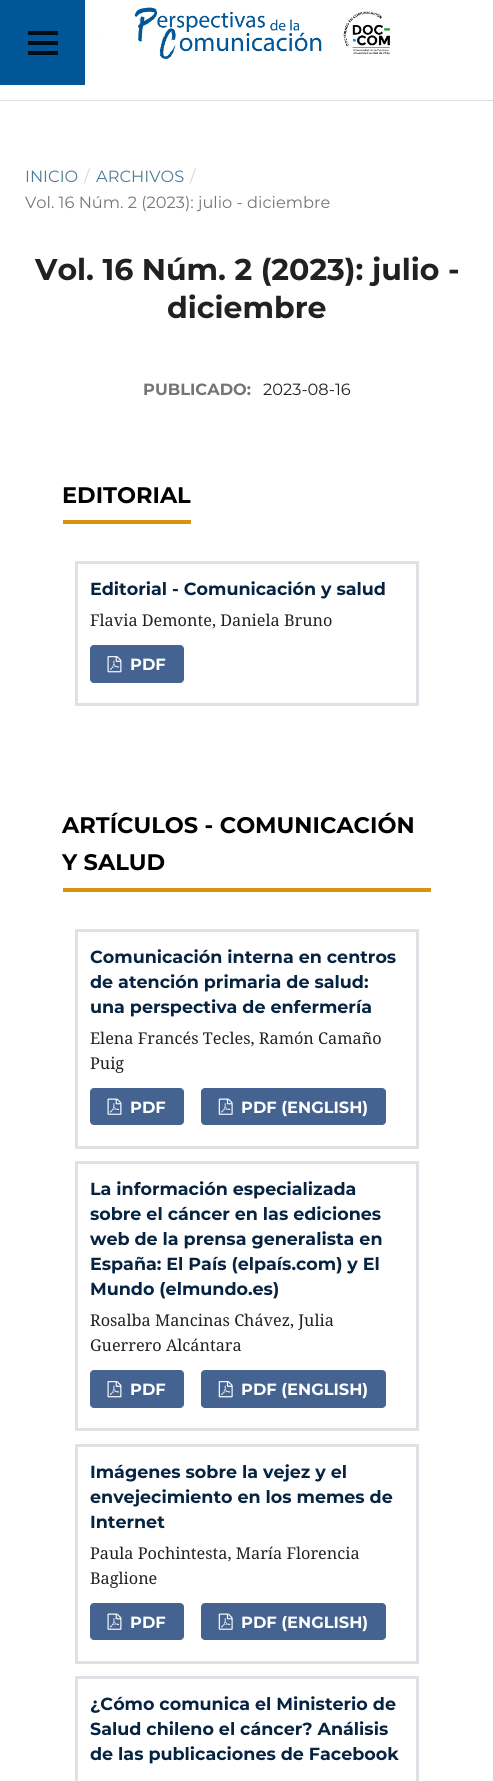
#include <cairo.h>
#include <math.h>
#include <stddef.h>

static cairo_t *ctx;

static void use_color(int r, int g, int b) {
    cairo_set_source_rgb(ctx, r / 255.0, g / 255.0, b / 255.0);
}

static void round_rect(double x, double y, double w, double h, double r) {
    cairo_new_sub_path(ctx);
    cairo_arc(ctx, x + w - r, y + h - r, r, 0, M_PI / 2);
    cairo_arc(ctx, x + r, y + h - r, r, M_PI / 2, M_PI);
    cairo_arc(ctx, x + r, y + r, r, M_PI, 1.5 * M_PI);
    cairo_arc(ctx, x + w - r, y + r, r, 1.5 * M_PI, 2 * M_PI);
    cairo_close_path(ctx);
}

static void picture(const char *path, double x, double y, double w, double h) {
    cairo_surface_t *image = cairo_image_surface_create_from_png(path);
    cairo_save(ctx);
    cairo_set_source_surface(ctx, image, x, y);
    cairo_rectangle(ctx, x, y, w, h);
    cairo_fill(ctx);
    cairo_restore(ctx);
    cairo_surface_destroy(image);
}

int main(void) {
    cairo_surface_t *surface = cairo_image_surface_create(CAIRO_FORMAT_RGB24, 493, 1781);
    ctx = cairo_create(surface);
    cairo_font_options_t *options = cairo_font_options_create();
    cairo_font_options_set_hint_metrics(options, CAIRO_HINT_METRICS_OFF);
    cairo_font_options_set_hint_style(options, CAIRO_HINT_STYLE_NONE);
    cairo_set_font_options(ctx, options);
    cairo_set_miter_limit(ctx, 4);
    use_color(255, 255, 255);
    cairo_paint(ctx);
    use_color(221, 221, 221);
    cairo_rectangle(ctx, 0, 100, 493, 1);
    cairo_fill(ctx);
    use_color(0, 86, 150);
    cairo_rectangle(ctx, 0, 0, 85, 85);
    cairo_fill(ctx);
    use_color(0, 14, 24);
    cairo_rectangle(ctx, 28, 51, 30, 4);
    cairo_fill(ctx);
    cairo_rectangle(ctx, 28, 31, 30, 4);
    cairo_fill(ctx);
    cairo_rectangle(ctx, 28, 41, 30, 4);
    cairo_fill(ctx);
    picture("img1.png", 96, 7, 295, 52);
    cairo_select_font_face(ctx, "Montserrat", CAIRO_FONT_SLANT_NORMAL, CAIRO_FONT_WEIGHT_NORMAL);
    cairo_set_font_size(ctx, 16.25);
    use_color(75, 125, 146);
    cairo_move_to(ctx, 25, 182);
    cairo_show_text(ctx, "INICIO");
    use_color(214, 214, 214);
    cairo_move_to(ctx, 84, 182);
    cairo_show_text(ctx, "/");
    use_color(75, 125, 146);
    cairo_move_to(ctx, 96, 182);
    cairo_show_text(ctx, "ARCHIVOS");
    use_color(214, 214, 214);
    cairo_move_to(ctx, 190, 182);
    cairo_show_text(ctx, "/");
    use_color(117, 117, 117);
    cairo_move_to(ctx, 25, 208);
    cairo_show_text(ctx, "Vol. 16 Núm. 2 (2023): julio - diciembre");
    cairo_select_font_face(ctx, "Montserrat", CAIRO_FONT_SLANT_NORMAL, CAIRO_FONT_WEIGHT_BOLD);
    cairo_set_font_size(ctx, 30);
    use_color(33, 33, 33);
    cairo_move_to(ctx, 35, 280);
    cairo_show_text(ctx, "Vol. 16 Núm. 2 (2023): julio -");
    cairo_move_to(ctx, 167, 318);
    cairo_show_text(ctx, "diciembre");
    cairo_set_font_size(ctx, 16.25);
    use_color(117, 117, 117);
    cairo_move_to(ctx, 143, 395);
    cairo_show_text(ctx, "PUBLICADO:");
    cairo_select_font_face(ctx, "Montserrat", CAIRO_FONT_SLANT_NORMAL, CAIRO_FONT_WEIGHT_NORMAL);
    use_color(33, 33, 33);
    cairo_move_to(ctx, 263, 395);
    cairo_show_text(ctx, "2023-08-16");
    use_color(215, 146, 18);
    cairo_rectangle(ctx, 63, 520, 128, 4);
    cairo_fill(ctx);
    cairo_select_font_face(ctx, "Montserrat", CAIRO_FONT_SLANT_NORMAL, CAIRO_FONT_WEIGHT_BOLD);
    cairo_set_font_size(ctx, 22.5);
    use_color(0, 0, 0);
    cairo_move_to(ctx, 62, 503);
    cairo_show_text(ctx, "EDITORIAL");
    cairo_rectangle(ctx, 76.5, 562.5, 341, 142);
    use_color(222, 226, 230);
    cairo_set_line_width(ctx, 3);
    cairo_stroke(ctx);
    cairo_set_font_size(ctx, 17.5);
    use_color(6, 35, 65);
    cairo_move_to(ctx, 90, 595);
    cairo_show_text(ctx, "Editorial - Comunicación y salud");
    cairo_select_font_face(ctx, "Noto Serif", CAIRO_FONT_SLANT_NORMAL, CAIRO_FONT_WEIGHT_NORMAL);
    cairo_set_font_size(ctx, 16.25);
    use_color(33, 33, 33);
    cairo_move_to(ctx, 90, 626);
    cairo_show_text(ctx, "Flavia Demonte, Daniela Bruno");
    use_color(68, 99, 145);
    round_rect(90.5, 645.5, 93, 37, 3.5);
    cairo_fill_preserve(ctx);
    cairo_set_line_width(ctx, 1);
    cairo_stroke(ctx);
    picture("img2.png", 107, 656, 15, 17);
    cairo_select_font_face(ctx, "Montserrat", CAIRO_FONT_SLANT_NORMAL, CAIRO_FONT_WEIGHT_BOLD);
    use_color(255, 255, 255);
    cairo_move_to(ctx, 130, 670);
    cairo_show_text(ctx, "PDF");
    use_color(215, 146, 18);
    cairo_rectangle(ctx, 63, 888, 368, 4);
    cairo_fill(ctx);
    cairo_set_font_size(ctx, 22.5);
    use_color(0, 0, 0);
    cairo_move_to(ctx, 62, 833);
    cairo_show_text(ctx, "ARTÍCULOS - COMUNICACIÓN");
    cairo_move_to(ctx, 62, 870);
    cairo_show_text(ctx, "Y SALUD");
    cairo_rectangle(ctx, 76.5, 930.5, 341, 217);
    use_color(222, 226, 230);
    cairo_set_line_width(ctx, 3);
    cairo_stroke(ctx);
    cairo_set_font_size(ctx, 17.5);
    use_color(6, 35, 65);
    cairo_move_to(ctx, 90, 963);
    cairo_show_text(ctx, "Comunicación interna en centros");
    cairo_move_to(ctx, 90, 988);
    cairo_show_text(ctx, "de atención primaria de salud:");
    cairo_move_to(ctx, 90, 1013);
    cairo_show_text(ctx, "una perspectiva de enfermería");
    cairo_select_font_face(ctx, "Noto Serif", CAIRO_FONT_SLANT_NORMAL, CAIRO_FONT_WEIGHT_NORMAL);
    cairo_set_font_size(ctx, 16.25);
    use_color(33, 33, 33);
    cairo_move_to(ctx, 90, 1044);
    cairo_show_text(ctx, "Elena Francés Tecles, Ramón Camaño");
    cairo_move_to(ctx, 90, 1069);
    cairo_show_text(ctx, "Puig");
    use_color(68, 99, 145);
    round_rect(90.5, 1088.5, 93, 36, 3.5);
    cairo_fill_preserve(ctx);
    cairo_set_line_width(ctx, 1);
    cairo_stroke(ctx);
    picture("img3.png", 107, 1098, 15, 17);
    cairo_select_font_face(ctx, "Montserrat", CAIRO_FONT_SLANT_NORMAL, CAIRO_FONT_WEIGHT_BOLD);
    use_color(255, 255, 255);
    cairo_move_to(ctx, 130, 1113);
    cairo_show_text(ctx, "PDF");
    use_color(68, 99, 145);
    round_rect(201.5, 1088.5, 184, 36, 3.5);
    cairo_fill_preserve(ctx);
    cairo_stroke(ctx);
    picture("img4.png", 218, 1098, 15, 17);
    use_color(255, 255, 255);
    cairo_move_to(ctx, 241, 1113);
    cairo_show_text(ctx, "PDF (ENGLISH)");
    cairo_rectangle(ctx, 76.5, 1162.5, 341, 267);
    use_color(222, 226, 230);
    cairo_set_line_width(ctx, 3);
    cairo_stroke(ctx);
    cairo_set_font_size(ctx, 17.5);
    use_color(6, 35, 65);
    cairo_move_to(ctx, 90, 1195);
    cairo_show_text(ctx, "La información especializada");
    cairo_move_to(ctx, 90, 1220);
    cairo_show_text(ctx, "sobre el cáncer en las ediciones");
    cairo_move_to(ctx, 90, 1245);
    cairo_show_text(ctx, "web de la prensa generalista en");
    cairo_move_to(ctx, 90, 1270);
    cairo_show_text(ctx, "España: El País (elpaís.com) y El");
    cairo_move_to(ctx, 90, 1295);
    cairo_show_text(ctx, "Mundo (elmundo.es)");
    cairo_select_font_face(ctx, "Noto Serif", CAIRO_FONT_SLANT_NORMAL, CAIRO_FONT_WEIGHT_NORMAL);
    cairo_set_font_size(ctx, 16.25);
    use_color(33, 33, 33);
    cairo_move_to(ctx, 90, 1326);
    cairo_show_text(ctx, "Rosalba Mancinas Chávez, Julia");
    cairo_move_to(ctx, 90, 1351);
    cairo_show_text(ctx, "Guerrero Alcántara");
    use_color(68, 99, 145);
    round_rect(90.5, 1370.5, 93, 37, 3.5);
    cairo_fill_preserve(ctx);
    cairo_set_line_width(ctx, 1);
    cairo_stroke(ctx);
    picture("img2.png", 107, 1381, 15, 17);
    cairo_select_font_face(ctx, "Montserrat", CAIRO_FONT_SLANT_NORMAL, CAIRO_FONT_WEIGHT_BOLD);
    use_color(255, 255, 255);
    cairo_move_to(ctx, 130, 1395);
    cairo_show_text(ctx, "PDF");
    use_color(68, 99, 145);
    round_rect(201.5, 1370.5, 184, 37, 3.5);
    cairo_fill_preserve(ctx);
    cairo_stroke(ctx);
    picture("img5.png", 218, 1381, 15, 17);
    use_color(255, 255, 255);
    cairo_move_to(ctx, 241, 1395);
    cairo_show_text(ctx, "PDF (ENGLISH)");
    cairo_rectangle(ctx, 76.5, 1445.5, 341, 217);
    use_color(222, 226, 230);
    cairo_set_line_width(ctx, 3);
    cairo_stroke(ctx);
    cairo_set_font_size(ctx, 17.5);
    use_color(6, 35, 65);
    cairo_move_to(ctx, 90, 1478);
    cairo_show_text(ctx, "Imágenes sobre la vejez y el");
    cairo_move_to(ctx, 90, 1503);
    cairo_show_text(ctx, "envejecimiento en los memes de");
    cairo_move_to(ctx, 90, 1528);
    cairo_show_text(ctx, "Internet");
    cairo_select_font_face(ctx, "Noto Serif", CAIRO_FONT_SLANT_NORMAL, CAIRO_FONT_WEIGHT_NORMAL);
    cairo_set_font_size(ctx, 16.25);
    use_color(33, 33, 33);
    cairo_move_to(ctx, 90, 1559);
    cairo_show_text(ctx, "Paula Pochintesta, María Florencia");
    cairo_move_to(ctx, 90, 1584);
    cairo_show_text(ctx, "Baglione");
    use_color(68, 99, 145);
    round_rect(90.5, 1603.5, 93, 36, 3.5);
    cairo_fill_preserve(ctx);
    cairo_set_line_width(ctx, 1);
    cairo_stroke(ctx);
    picture("img3.png", 107, 1613, 15, 17);
    cairo_select_font_face(ctx, "Montserrat", CAIRO_FONT_SLANT_NORMAL, CAIRO_FONT_WEIGHT_BOLD);
    use_color(255, 255, 255);
    cairo_move_to(ctx, 130, 1628);
    cairo_show_text(ctx, "PDF");
    use_color(68, 99, 145);
    round_rect(201.5, 1603.5, 184, 36, 3.5);
    cairo_fill_preserve(ctx);
    cairo_stroke(ctx);
    picture("img4.png", 218, 1613, 15, 17);
    use_color(255, 255, 255);
    cairo_move_to(ctx, 241, 1628);
    cairo_show_text(ctx, "PDF (ENGLISH)");
    cairo_rectangle(ctx, 76.5, 1677.5, 341, 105);
    use_color(222, 226, 230);
    cairo_set_line_width(ctx, 3);
    cairo_stroke(ctx);
    cairo_set_font_size(ctx, 17.5);
    use_color(6, 35, 65);
    cairo_move_to(ctx, 90, 1710);
    cairo_show_text(ctx, "¿Cómo comunica el Ministerio de");
    cairo_move_to(ctx, 90, 1735);
    cairo_show_text(ctx, "Salud chileno el cáncer? Análisis");
    cairo_move_to(ctx, 90, 1760);
    cairo_show_text(ctx, "de las publicaciones de Facebook");
    cairo_surface_write_to_png(surface, "result.png");
    cairo_font_options_destroy(options);
    cairo_destroy(ctx);
    cairo_surface_destroy(surface);
    return 0;
}
